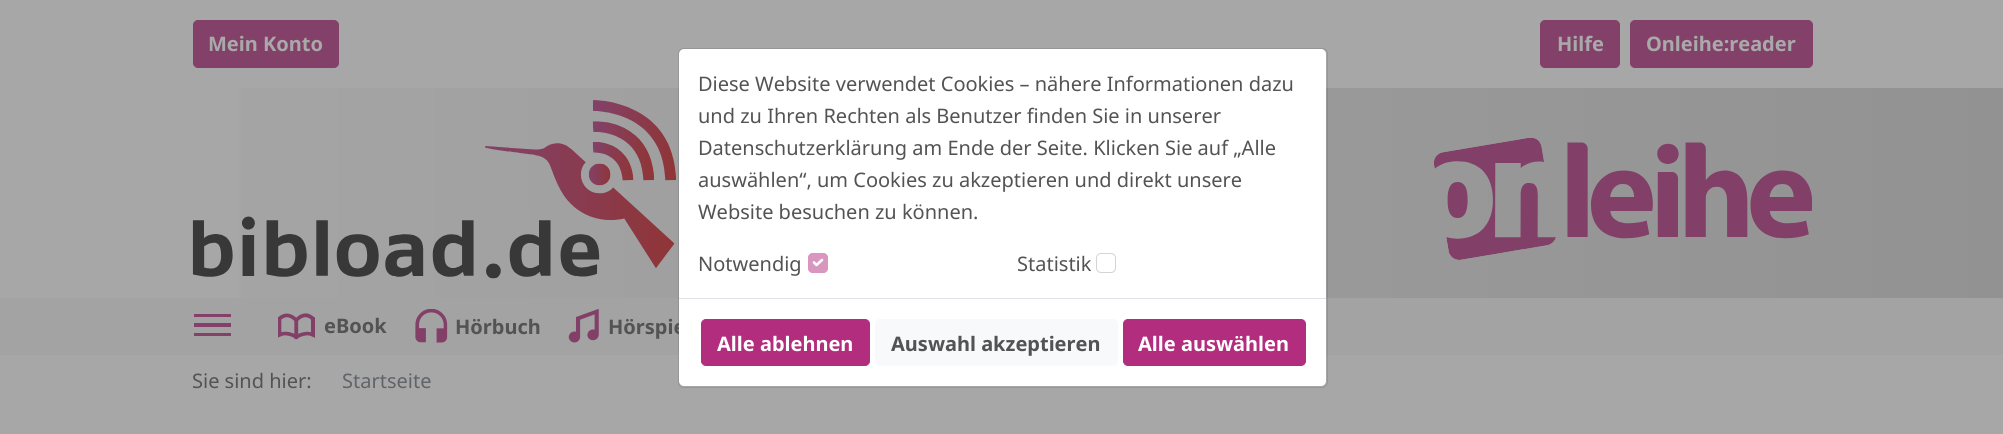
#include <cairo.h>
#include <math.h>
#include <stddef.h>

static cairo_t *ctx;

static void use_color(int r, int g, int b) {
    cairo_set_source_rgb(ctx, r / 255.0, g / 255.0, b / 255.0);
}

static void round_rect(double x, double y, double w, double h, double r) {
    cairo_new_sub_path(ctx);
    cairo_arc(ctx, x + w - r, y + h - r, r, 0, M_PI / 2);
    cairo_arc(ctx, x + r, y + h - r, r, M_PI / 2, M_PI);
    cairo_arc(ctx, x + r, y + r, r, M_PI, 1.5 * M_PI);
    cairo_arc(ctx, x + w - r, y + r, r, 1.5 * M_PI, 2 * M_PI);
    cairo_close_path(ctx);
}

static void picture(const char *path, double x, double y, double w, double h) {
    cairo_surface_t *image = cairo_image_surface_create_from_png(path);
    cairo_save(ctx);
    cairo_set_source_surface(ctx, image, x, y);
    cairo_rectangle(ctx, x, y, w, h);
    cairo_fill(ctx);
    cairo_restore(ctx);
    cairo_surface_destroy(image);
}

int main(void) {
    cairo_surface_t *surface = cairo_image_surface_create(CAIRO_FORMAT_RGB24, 2003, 434);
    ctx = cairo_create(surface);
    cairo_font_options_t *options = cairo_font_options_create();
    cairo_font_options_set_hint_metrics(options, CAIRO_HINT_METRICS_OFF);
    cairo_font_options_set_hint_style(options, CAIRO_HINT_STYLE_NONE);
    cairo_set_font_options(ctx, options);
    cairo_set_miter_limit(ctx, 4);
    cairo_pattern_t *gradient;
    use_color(167, 167, 167);
    cairo_paint(ctx);
    use_color(131, 64, 105);
    round_rect(193.5, 20.5, 145, 47, 4.5);
    cairo_fill_preserve(ctx);
    cairo_set_line_width(ctx, 1);
    cairo_stroke(ctx);
    cairo_select_font_face(ctx, "Noto Sans", CAIRO_FONT_SLANT_NORMAL, CAIRO_FONT_WEIGHT_BOLD);
    cairo_set_font_size(ctx, 20);
    use_color(169, 169, 169);
    cairo_move_to(ctx, 208, 51);
    cairo_show_text(ctx, "Mein Konto");
    use_color(131, 64, 105);
    round_rect(1540.5, 20.5, 79, 47, 4.5);
    cairo_fill_preserve(ctx);
    cairo_stroke(ctx);
    use_color(169, 169, 169);
    cairo_move_to(ctx, 1557, 51);
    cairo_show_text(ctx, "Hilfe");
    use_color(131, 64, 105);
    round_rect(1630.5, 20.5, 182, 47, 4.5);
    cairo_fill_preserve(ctx);
    cairo_stroke(ctx);
    use_color(169, 169, 169);
    cairo_move_to(ctx, 1646, 51);
    cairo_show_text(ctx, "Onleihe:reader");
    gradient = cairo_pattern_create_linear(0, 193, 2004, 192);
    cairo_pattern_add_color_stop_rgba(gradient, 0, 0.655, 0.655, 0.655, 1);
    cairo_pattern_add_color_stop_rgba(gradient, 1, 0.573, 0.573, 0.576, 1);
    cairo_set_source(ctx, gradient);
    cairo_pattern_destroy(gradient);
    cairo_rectangle(ctx, 239, 88, 1764, 210);
    cairo_fill(ctx);
    picture("img1.png", 192, 100, 484, 179);
    picture("img2.png", 1434, 138, 379, 122);
    use_color(163, 163, 163);
    cairo_rectangle(ctx, 0, 298, 2003, 57);
    cairo_fill(ctx);
    use_color(131, 64, 105);
    cairo_rectangle(ctx, 194, 314, 37, 3);
    cairo_fill(ctx);
    cairo_rectangle(ctx, 194, 323, 37, 4);
    cairo_fill(ctx);
    cairo_rectangle(ctx, 194, 333, 37, 3);
    cairo_fill(ctx);
    picture("img3.png", 278, 313, 37, 27);
    use_color(83, 83, 83);
    cairo_move_to(ctx, 324, 333);
    cairo_show_text(ctx, "eBook");
    picture("img4.png", 415, 309, 33, 34);
    cairo_move_to(ctx, 455, 334);
    cairo_show_text(ctx, "Hörbuch");
    picture("img5.png", 568, 309, 31, 34);
    cairo_move_to(ctx, 608, 334);
    cairo_show_text(ctx, "Hörspie");
    use_color(255, 255, 255);
    round_rect(679, 49, 647, 337, 5);
    cairo_fill(ctx);
    round_rect(678.5, 48.5, 649, 339, 5.5);
    cairo_set_source_rgba(ctx, 0.325, 0.325, 0.325, 0.2);
    cairo_stroke(ctx);
    cairo_select_font_face(ctx, "Noto Sans", CAIRO_FONT_SLANT_NORMAL, CAIRO_FONT_WEIGHT_NORMAL);
    use_color(83, 83, 83);
    cairo_move_to(ctx, 698, 91);
    cairo_show_text(ctx, "Diese Website verwendet Cookies – nähere Informationen dazu");
    cairo_move_to(ctx, 698, 123);
    cairo_show_text(ctx, "und zu Ihren Rechten als Benutzer finden Sie in unserer");
    cairo_move_to(ctx, 698, 155);
    cairo_show_text(ctx, "Datenschutzerklärung am Ende der Seite. Klicken Sie auf „Alle");
    cairo_move_to(ctx, 698, 187);
    cairo_show_text(ctx, "auswählen“, um Cookies zu akzeptieren und direkt unsere");
    cairo_move_to(ctx, 698, 219);
    cairo_show_text(ctx, "Website besuchen zu können.");
    cairo_move_to(ctx, 698, 271);
    cairo_show_text(ctx, "Notwendig");
    use_color(217, 150, 191);
    round_rect(808, 253, 20, 20, 5);
    cairo_fill(ctx);
    cairo_new_path(ctx);
    cairo_move_to(ctx, 814, 262.5);
    cairo_line_to(ctx, 816.5, 265);
    cairo_line_to(ctx, 822, 260);
    use_color(255, 255, 255);
    cairo_set_line_width(ctx, 2.6);
    cairo_set_line_cap(ctx, CAIRO_LINE_CAP_ROUND);
    cairo_set_line_join(ctx, CAIRO_LINE_JOIN_ROUND);
    cairo_stroke(ctx);
    round_rect(808.5, 253.5, 19, 19, 4.5);
    use_color(217, 150, 191);
    cairo_set_line_width(ctx, 1);
    cairo_set_line_cap(ctx, CAIRO_LINE_CAP_BUTT);
    cairo_set_line_join(ctx, CAIRO_LINE_JOIN_MITER);
    cairo_stroke(ctx);
    use_color(83, 83, 83);
    cairo_move_to(ctx, 1017, 271);
    cairo_show_text(ctx, "Statistik");
    round_rect(1096.5, 253.5, 19, 19, 4.5);
    use_color(212, 212, 212);
    cairo_stroke(ctx);
    use_color(222, 226, 230);
    cairo_rectangle(ctx, 679, 298, 647, 1);
    cairo_fill(ctx);
    use_color(178, 45, 126);
    round_rect(701.5, 319.5, 168, 46, 4.5);
    cairo_fill_preserve(ctx);
    cairo_stroke(ctx);
    cairo_select_font_face(ctx, "Noto Sans", CAIRO_FONT_SLANT_NORMAL, CAIRO_FONT_WEIGHT_BOLD);
    use_color(255, 255, 255);
    cairo_move_to(ctx, 717, 351);
    cairo_show_text(ctx, "Alle ablehnen");
    use_color(248, 249, 250);
    round_rect(875, 319, 243, 47, 5);
    cairo_fill(ctx);
    use_color(83, 83, 83);
    cairo_move_to(ctx, 891, 351);
    cairo_show_text(ctx, "Auswahl akzeptieren");
    use_color(178, 45, 126);
    round_rect(1123.5, 319.5, 182, 46, 4.5);
    cairo_fill_preserve(ctx);
    cairo_stroke(ctx);
    use_color(255, 255, 255);
    cairo_move_to(ctx, 1138, 351);
    cairo_show_text(ctx, "Alle auswählen");
    cairo_select_font_face(ctx, "Noto Sans", CAIRO_FONT_SLANT_NORMAL, CAIRO_FONT_WEIGHT_NORMAL);
    use_color(83, 83, 83);
    cairo_move_to(ctx, 192, 388);
    cairo_show_text(ctx, "Sie sind hier:");
    use_color(96, 100, 104);
    cairo_move_to(ctx, 342, 388);
    cairo_show_text(ctx, "Startseite");
    cairo_surface_write_to_png(surface, "result.png");
    cairo_font_options_destroy(options);
    cairo_destroy(ctx);
    cairo_surface_destroy(surface);
    return 0;
}
